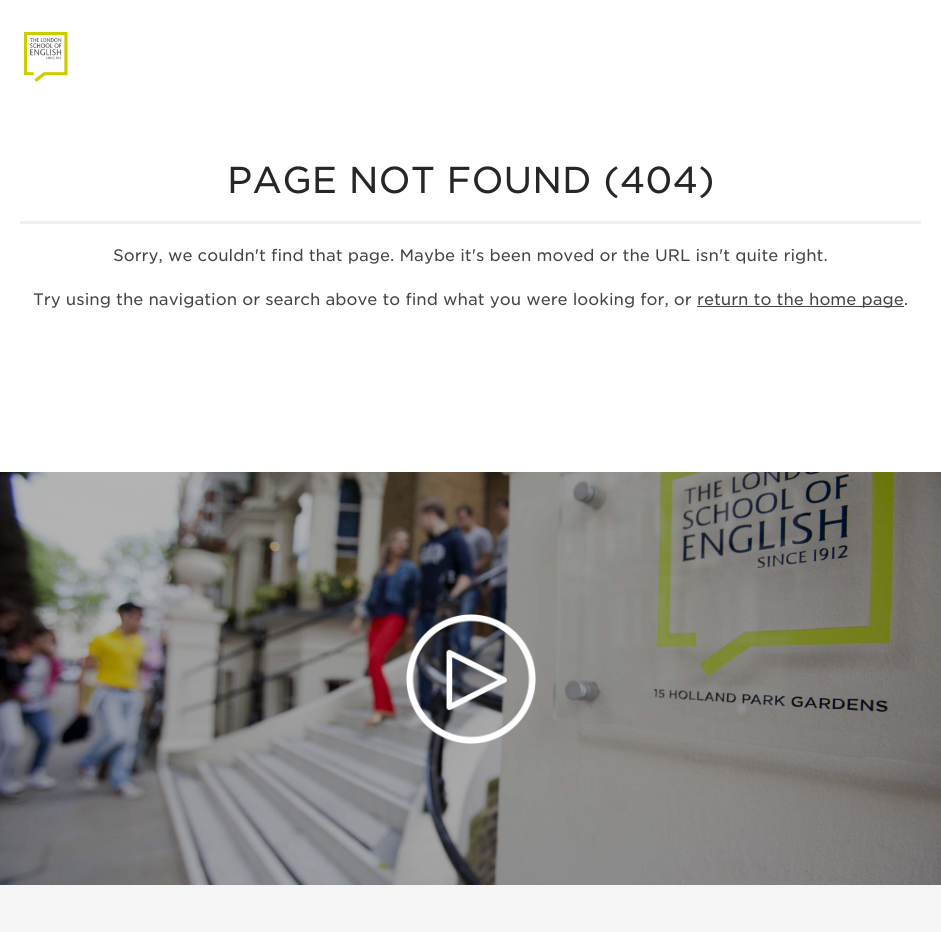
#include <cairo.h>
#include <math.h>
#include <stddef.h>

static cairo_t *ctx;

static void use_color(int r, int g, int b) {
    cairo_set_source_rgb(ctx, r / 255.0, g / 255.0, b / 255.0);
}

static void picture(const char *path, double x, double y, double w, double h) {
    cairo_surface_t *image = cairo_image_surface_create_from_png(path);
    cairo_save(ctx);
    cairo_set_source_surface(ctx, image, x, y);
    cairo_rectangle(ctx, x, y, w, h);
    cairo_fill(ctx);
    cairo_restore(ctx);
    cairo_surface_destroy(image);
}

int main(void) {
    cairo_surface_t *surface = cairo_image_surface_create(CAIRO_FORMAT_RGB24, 941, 932);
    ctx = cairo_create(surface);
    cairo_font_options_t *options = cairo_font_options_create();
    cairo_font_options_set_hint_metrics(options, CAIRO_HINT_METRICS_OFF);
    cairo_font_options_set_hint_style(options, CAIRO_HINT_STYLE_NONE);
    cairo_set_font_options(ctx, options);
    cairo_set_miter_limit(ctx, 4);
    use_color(245, 245, 245);
    cairo_paint(ctx);
    use_color(255, 255, 255);
    cairo_rectangle(ctx, 0, 0, 941, 121);
    cairo_fill(ctx);
    picture("img1.png", 24, 32, 44, 50);
    cairo_rectangle(ctx, 0, 121, 941, 351);
    cairo_fill(ctx);
    use_color(239, 239, 239);
    cairo_rectangle(ctx, 20, 221, 901, 3);
    cairo_fill(ctx);
    cairo_select_font_face(ctx, "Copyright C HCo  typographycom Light", CAIRO_FONT_SLANT_NORMAL, CAIRO_FONT_WEIGHT_NORMAL);
    cairo_set_font_size(ctx, 36);
    use_color(38, 38, 38);
    cairo_move_to(ctx, 227, 193);
    cairo_show_text(ctx, "PAGE NOT FOUND (404)");
    cairo_set_font_size(ctx, 16);
    use_color(68, 68, 68);
    cairo_move_to(ctx, 113, 261);
    cairo_show_text(ctx, "Sorry, we couldn't find that page. Maybe it's been moved or the URL isn't quite right.");
    cairo_move_to(ctx, 33, 305);
    cairo_show_text(ctx, "Try using the navigation or search above to find what you were looking for, or");
    cairo_rectangle(ctx, 697, 306, 207, 1);
    cairo_fill(ctx);
    cairo_move_to(ctx, 697, 305);
    cairo_show_text(ctx, "return to the home page.");
    picture("img2.png", 0, 472, 941, 413);
    picture("img3.png", 406, 614, 130, 130);
    cairo_surface_write_to_png(surface, "result.png");
    cairo_font_options_destroy(options);
    cairo_destroy(ctx);
    cairo_surface_destroy(surface);
    return 0;
}
